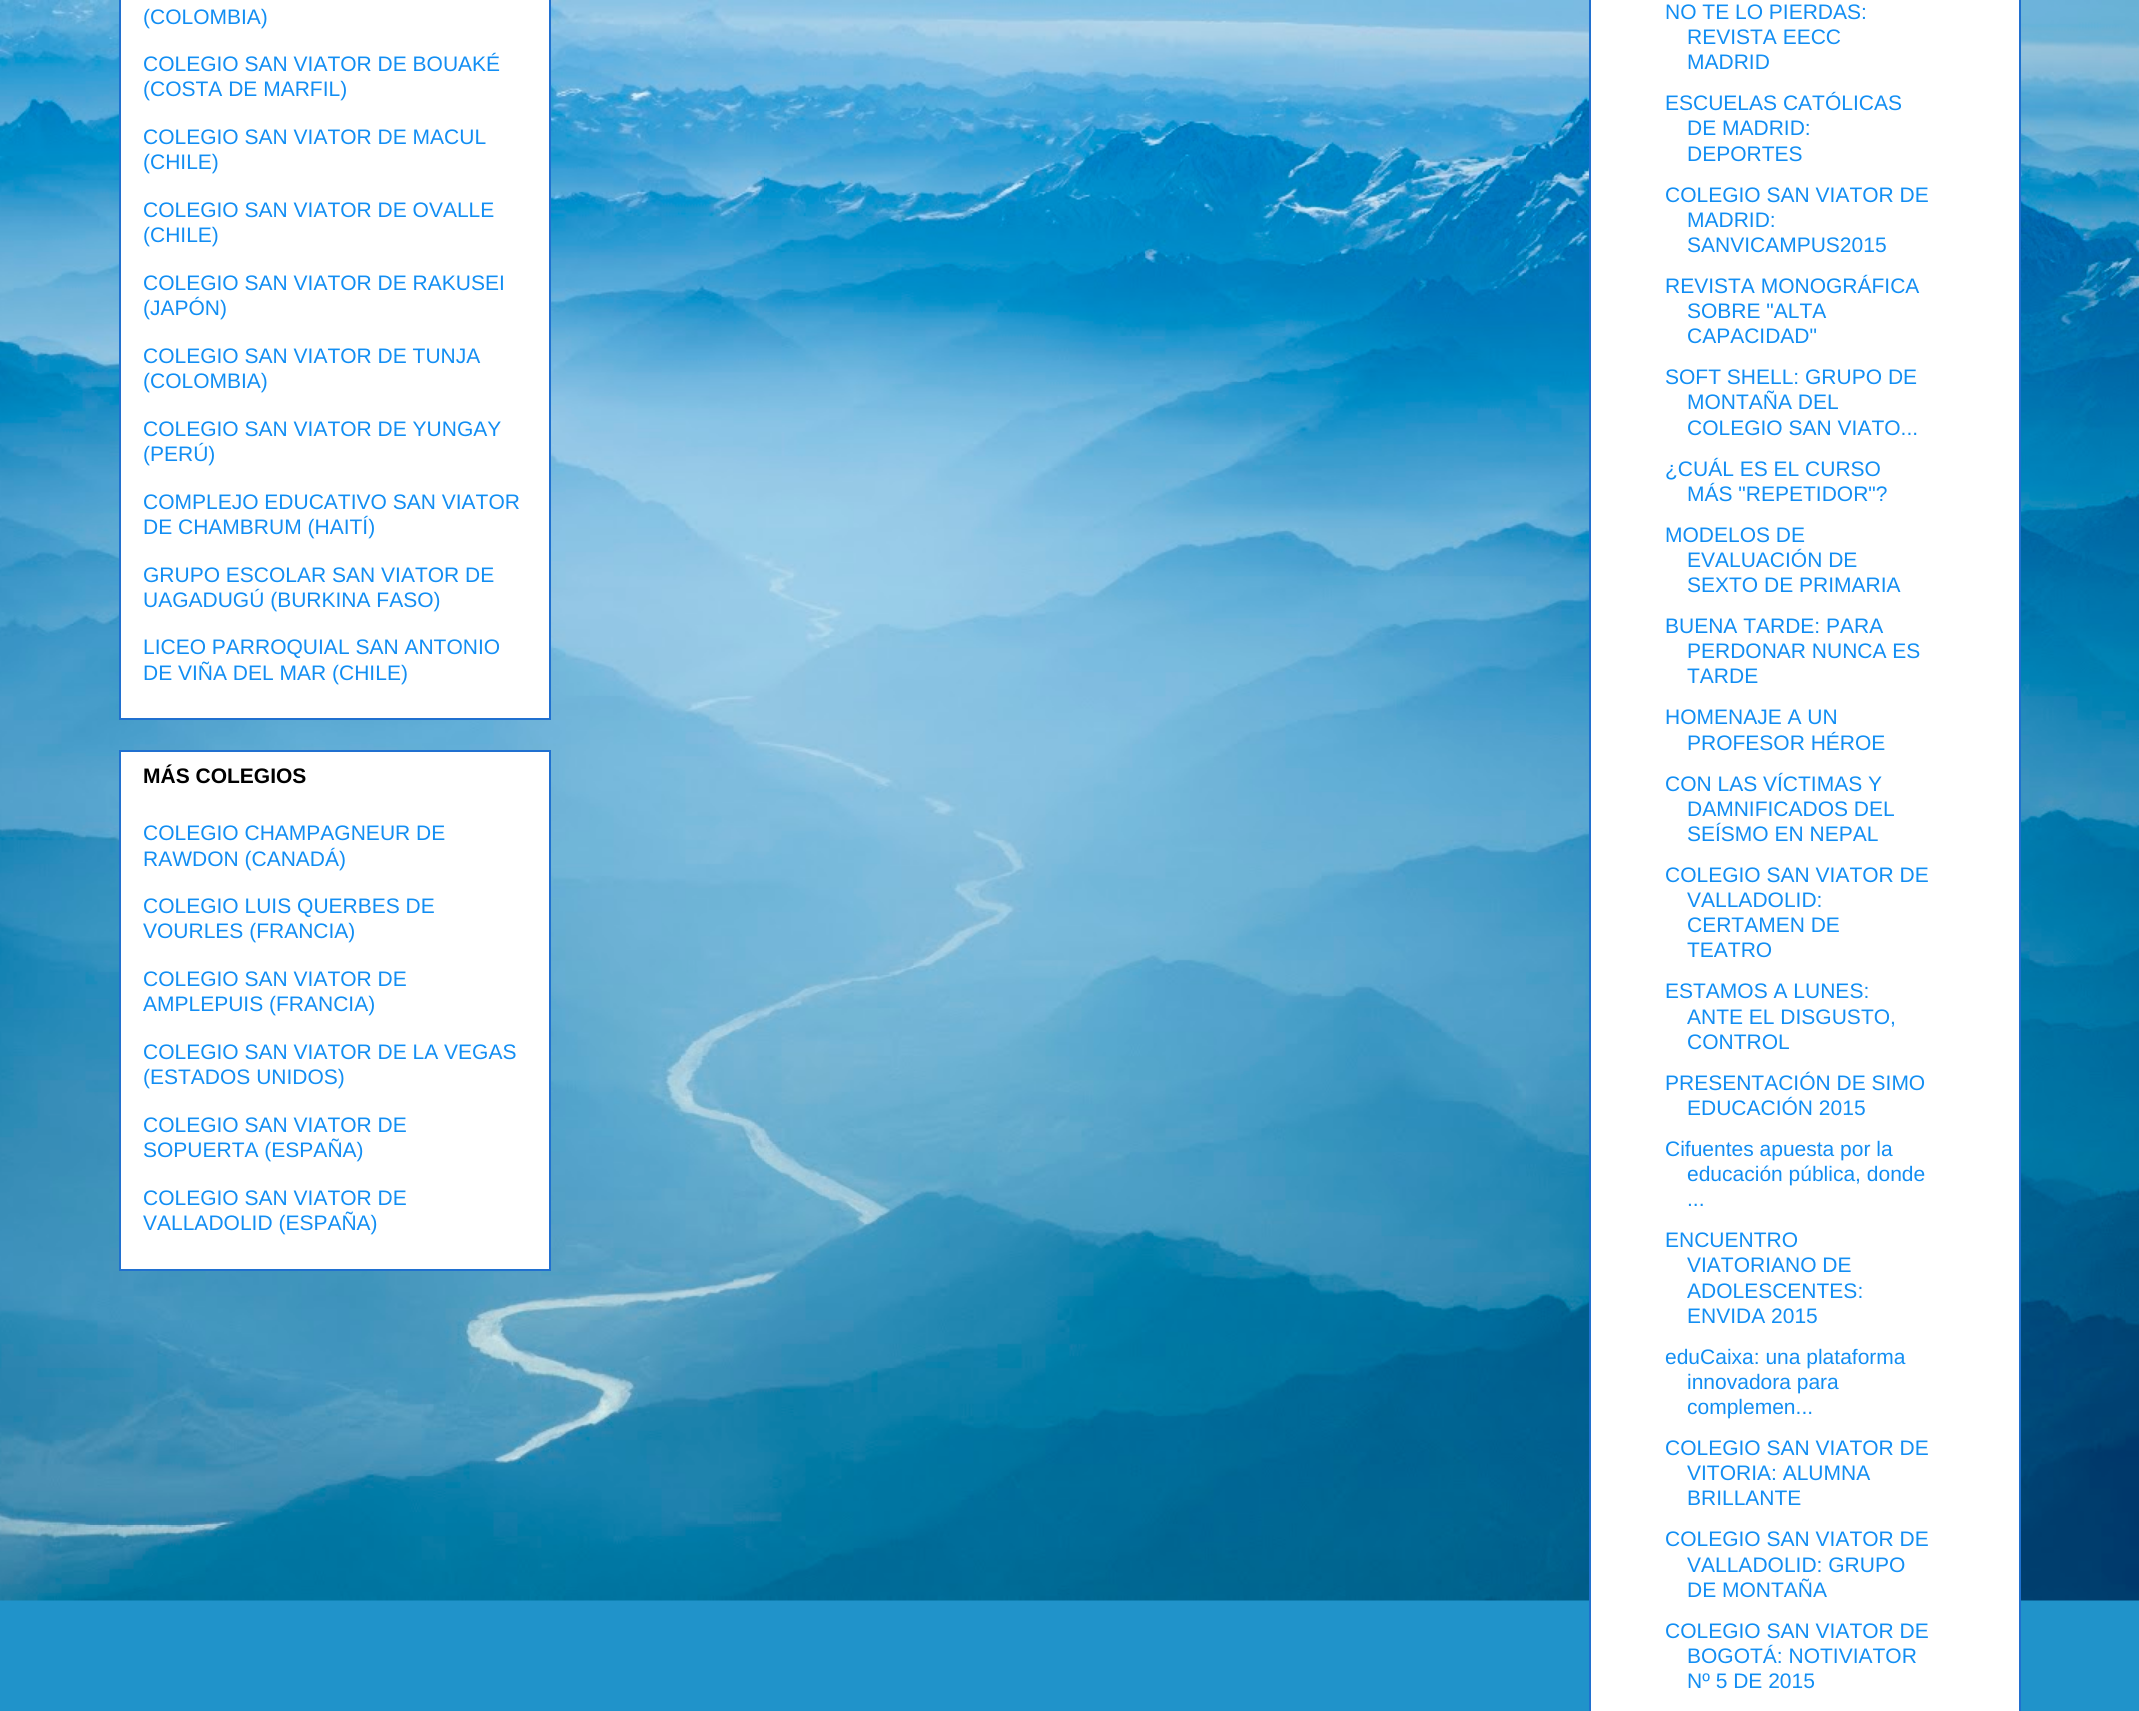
#include <cairo.h>
#include <math.h>
#include <stddef.h>

static cairo_t *ctx;

static void use_color(int r, int g, int b) {
    cairo_set_source_rgb(ctx, r / 255.0, g / 255.0, b / 255.0);
}

static void picture(const char *path, double x, double y, double w, double h) {
    cairo_surface_t *image = cairo_image_surface_create_from_png(path);
    cairo_save(ctx);
    cairo_set_source_surface(ctx, image, x, y);
    cairo_rectangle(ctx, x, y, w, h);
    cairo_fill(ctx);
    cairo_restore(ctx);
    cairo_surface_destroy(image);
}

int main(void) {
    cairo_surface_t *surface = cairo_image_surface_create(CAIRO_FORMAT_RGB24, 2139, 1711);
    ctx = cairo_create(surface);
    cairo_font_options_t *options = cairo_font_options_create();
    cairo_font_options_set_hint_metrics(options, CAIRO_HINT_METRICS_OFF);
    cairo_font_options_set_hint_style(options, CAIRO_HINT_STYLE_NONE);
    cairo_set_font_options(ctx, options);
    cairo_set_miter_limit(ctx, 4);
    use_color(32, 147, 202);
    cairo_paint(ctx);
    picture("img1.png", 0, 0, 2139, 1601);
    use_color(255, 255, 255);
    cairo_rectangle(ctx, 120, -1, 430, 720);
    cairo_fill_preserve(ctx);
    use_color(32, 112, 208);
    cairo_stroke(ctx);
    cairo_select_font_face(ctx, "Liberation Sans", CAIRO_FONT_SLANT_NORMAL, CAIRO_FONT_WEIGHT_NORMAL);
    cairo_set_font_size(ctx, 21);
    use_color(18, 142, 243);
    cairo_move_to(ctx, 143, 24);
    cairo_show_text(ctx, "(COLOMBIA)");
    cairo_move_to(ctx, 143, 71);
    cairo_show_text(ctx, "COLEGIO SAN VIATOR DE BOUAKÉ");
    cairo_move_to(ctx, 143, 96);
    cairo_show_text(ctx, "(COSTA DE MARFIL)");
    cairo_move_to(ctx, 143, 144);
    cairo_show_text(ctx, "COLEGIO SAN VIATOR DE MACUL");
    cairo_move_to(ctx, 143, 169);
    cairo_show_text(ctx, "(CHILE)");
    cairo_move_to(ctx, 143, 217);
    cairo_show_text(ctx, "COLEGIO SAN VIATOR DE OVALLE");
    cairo_move_to(ctx, 143, 242);
    cairo_show_text(ctx, "(CHILE)");
    cairo_move_to(ctx, 143, 290);
    cairo_show_text(ctx, "COLEGIO SAN VIATOR DE RAKUSEI");
    cairo_move_to(ctx, 143, 315);
    cairo_show_text(ctx, "(JAPÓN)");
    cairo_move_to(ctx, 143, 363);
    cairo_show_text(ctx, "COLEGIO SAN VIATOR DE TUNJA");
    cairo_move_to(ctx, 143, 388);
    cairo_show_text(ctx, "(COLOMBIA)");
    cairo_move_to(ctx, 143, 436);
    cairo_show_text(ctx, "COLEGIO SAN VIATOR DE YUNGAY");
    cairo_move_to(ctx, 143, 461);
    cairo_show_text(ctx, "(PERÚ)");
    cairo_move_to(ctx, 143, 509);
    cairo_show_text(ctx, "COMPLEJO EDUCATIVO SAN VIATOR");
    cairo_move_to(ctx, 143, 534);
    cairo_show_text(ctx, "DE CHAMBRUM (HAITÍ)");
    cairo_move_to(ctx, 143, 582);
    cairo_show_text(ctx, "GRUPO ESCOLAR SAN VIATOR DE");
    cairo_move_to(ctx, 143, 607);
    cairo_show_text(ctx, "UAGADUGÚ (BURKINA FASO)");
    cairo_move_to(ctx, 143, 654);
    cairo_show_text(ctx, "LICEO PARROQUIAL SAN ANTONIO");
    cairo_move_to(ctx, 143, 680);
    cairo_show_text(ctx, "DE VIÑA DEL MAR (CHILE)");
    use_color(255, 255, 255);
    cairo_rectangle(ctx, 120, 751, 430, 519);
    cairo_fill_preserve(ctx);
    use_color(32, 112, 208);
    cairo_stroke(ctx);
    cairo_select_font_face(ctx, "Liberation Sans", CAIRO_FONT_SLANT_NORMAL, CAIRO_FONT_WEIGHT_BOLD);
    use_color(0, 0, 0);
    cairo_move_to(ctx, 143, 783);
    cairo_show_text(ctx, "MÁS COLEGIOS");
    cairo_select_font_face(ctx, "Liberation Sans", CAIRO_FONT_SLANT_NORMAL, CAIRO_FONT_WEIGHT_NORMAL);
    use_color(18, 142, 243);
    cairo_move_to(ctx, 143, 840);
    cairo_show_text(ctx, "COLEGIO CHAMPAGNEUR DE");
    cairo_move_to(ctx, 143, 866);
    cairo_show_text(ctx, "RAWDON (CANADÁ)");
    cairo_move_to(ctx, 143, 913);
    cairo_show_text(ctx, "COLEGIO LUIS QUERBES DE");
    cairo_move_to(ctx, 143, 938);
    cairo_show_text(ctx, "VOURLES (FRANCIA)");
    cairo_move_to(ctx, 143, 986);
    cairo_show_text(ctx, "COLEGIO SAN VIATOR DE");
    cairo_move_to(ctx, 143, 1011);
    cairo_show_text(ctx, "AMPLEPUIS (FRANCIA)");
    cairo_move_to(ctx, 143, 1059);
    cairo_show_text(ctx, "COLEGIO SAN VIATOR DE LA VEGAS");
    cairo_move_to(ctx, 143, 1084);
    cairo_show_text(ctx, "(ESTADOS UNIDOS)");
    cairo_move_to(ctx, 143, 1132);
    cairo_show_text(ctx, "COLEGIO SAN VIATOR DE");
    cairo_move_to(ctx, 143, 1157);
    cairo_show_text(ctx, "SOPUERTA (ESPAÑA)");
    cairo_move_to(ctx, 143, 1205);
    cairo_show_text(ctx, "COLEGIO SAN VIATOR DE");
    cairo_move_to(ctx, 143, 1230);
    cairo_show_text(ctx, "VALLADOLID (ESPAÑA)");
    use_color(255, 255, 255);
    cairo_rectangle(ctx, 1590, -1, 430, 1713);
    cairo_fill_preserve(ctx);
    use_color(32, 112, 208);
    cairo_stroke(ctx);
    use_color(18, 142, 243);
    cairo_move_to(ctx, 1665, 19);
    cairo_show_text(ctx, "NO TE LO PIERDAS:");
    cairo_move_to(ctx, 1687, 44);
    cairo_show_text(ctx, "REVISTA EECC");
    cairo_move_to(ctx, 1687, 69);
    cairo_show_text(ctx, "MADRID");
    cairo_move_to(ctx, 1665, 110);
    cairo_show_text(ctx, "ESCUELAS CATÓLICAS");
    cairo_move_to(ctx, 1687, 135);
    cairo_show_text(ctx, "DE MADRID:");
    cairo_move_to(ctx, 1687, 161);
    cairo_show_text(ctx, "DEPORTES");
    cairo_move_to(ctx, 1665, 202);
    cairo_show_text(ctx, "COLEGIO SAN VIATOR DE");
    cairo_move_to(ctx, 1687, 227);
    cairo_show_text(ctx, "MADRID:");
    cairo_move_to(ctx, 1687, 252);
    cairo_show_text(ctx, "SANVICAMPUS2015");
    cairo_move_to(ctx, 1665, 293);
    cairo_show_text(ctx, "REVISTA MONOGRÁFICA");
    cairo_move_to(ctx, 1687, 318);
    cairo_show_text(ctx, "SOBRE \"ALTA");
    cairo_move_to(ctx, 1687, 343);
    cairo_show_text(ctx, "CAPACIDAD\"");
    cairo_move_to(ctx, 1665, 384);
    cairo_show_text(ctx, "SOFT SHELL: GRUPO DE");
    cairo_move_to(ctx, 1687, 409);
    cairo_show_text(ctx, "MONTAÑA DEL");
    cairo_move_to(ctx, 1687, 435);
    cairo_show_text(ctx, "COLEGIO SAN VIATO...");
    cairo_move_to(ctx, 1665, 476);
    cairo_show_text(ctx, "¿CUÁL ES EL CURSO");
    cairo_move_to(ctx, 1687, 501);
    cairo_show_text(ctx, "MÁS \"REPETIDOR\"?");
    cairo_move_to(ctx, 1665, 542);
    cairo_show_text(ctx, "MODELOS DE");
    cairo_move_to(ctx, 1687, 567);
    cairo_show_text(ctx, "EVALUACIÓN DE");
    cairo_move_to(ctx, 1687, 592);
    cairo_show_text(ctx, "SEXTO DE PRIMARIA");
    cairo_move_to(ctx, 1665, 633);
    cairo_show_text(ctx, "BUENA TARDE: PARA");
    cairo_move_to(ctx, 1687, 658);
    cairo_show_text(ctx, "PERDONAR NUNCA ES");
    cairo_move_to(ctx, 1687, 683);
    cairo_show_text(ctx, "TARDE");
    cairo_move_to(ctx, 1665, 724);
    cairo_show_text(ctx, "HOMENAJE A UN");
    cairo_move_to(ctx, 1687, 750);
    cairo_show_text(ctx, "PROFESOR HÉROE");
    cairo_move_to(ctx, 1665, 791);
    cairo_show_text(ctx, "CON LAS VÍCTIMAS Y");
    cairo_move_to(ctx, 1687, 816);
    cairo_show_text(ctx, "DAMNIFICADOS DEL");
    cairo_move_to(ctx, 1687, 841);
    cairo_show_text(ctx, "SEÍSMO EN NEPAL");
    cairo_move_to(ctx, 1665, 882);
    cairo_show_text(ctx, "COLEGIO SAN VIATOR DE");
    cairo_move_to(ctx, 1687, 907);
    cairo_show_text(ctx, "VALLADOLID:");
    cairo_move_to(ctx, 1687, 932);
    cairo_show_text(ctx, "CERTAMEN DE");
    cairo_move_to(ctx, 1687, 957);
    cairo_show_text(ctx, "TEATRO");
    cairo_move_to(ctx, 1665, 998);
    cairo_show_text(ctx, "ESTAMOS A LUNES:");
    cairo_move_to(ctx, 1687, 1024);
    cairo_show_text(ctx, "ANTE EL DISGUSTO,");
    cairo_move_to(ctx, 1687, 1049);
    cairo_show_text(ctx, "CONTROL");
    cairo_move_to(ctx, 1665, 1090);
    cairo_show_text(ctx, "PRESENTACIÓN DE SIMO");
    cairo_move_to(ctx, 1687, 1115);
    cairo_show_text(ctx, "EDUCACIÓN 2015");
    cairo_move_to(ctx, 1665, 1156);
    cairo_show_text(ctx, "Cifuentes apuesta por la");
    cairo_move_to(ctx, 1687, 1181);
    cairo_show_text(ctx, "educación pública, donde");
    cairo_move_to(ctx, 1687, 1206);
    cairo_show_text(ctx, "...");
    cairo_move_to(ctx, 1665, 1247);
    cairo_show_text(ctx, "ENCUENTRO");
    cairo_move_to(ctx, 1687, 1272);
    cairo_show_text(ctx, "VIATORIANO DE");
    cairo_move_to(ctx, 1687, 1298);
    cairo_show_text(ctx, "ADOLESCENTES:");
    cairo_move_to(ctx, 1687, 1323);
    cairo_show_text(ctx, "ENVIDA 2015");
    cairo_move_to(ctx, 1665, 1364);
    cairo_show_text(ctx, "eduCaixa: una plataforma");
    cairo_move_to(ctx, 1687, 1389);
    cairo_show_text(ctx, "innovadora para");
    cairo_move_to(ctx, 1687, 1414);
    cairo_show_text(ctx, "complemen...");
    cairo_move_to(ctx, 1665, 1455);
    cairo_show_text(ctx, "COLEGIO SAN VIATOR DE");
    cairo_move_to(ctx, 1687, 1480);
    cairo_show_text(ctx, "VITORIA: ALUMNA");
    cairo_move_to(ctx, 1687, 1505);
    cairo_show_text(ctx, "BRILLANTE");
    cairo_move_to(ctx, 1665, 1546);
    cairo_show_text(ctx, "COLEGIO SAN VIATOR DE");
    cairo_move_to(ctx, 1687, 1572);
    cairo_show_text(ctx, "VALLADOLID: GRUPO");
    cairo_move_to(ctx, 1687, 1597);
    cairo_show_text(ctx, "DE MONTAÑA");
    cairo_move_to(ctx, 1665, 1638);
    cairo_show_text(ctx, "COLEGIO SAN VIATOR DE");
    cairo_move_to(ctx, 1687, 1663);
    cairo_show_text(ctx, "BOGOTÁ: NOTIVIATOR");
    cairo_move_to(ctx, 1687, 1688);
    cairo_show_text(ctx, "Nº 5 DE 2015");
    cairo_surface_write_to_png(surface, "result.png");
    cairo_font_options_destroy(options);
    cairo_destroy(ctx);
    cairo_surface_destroy(surface);
    return 0;
}
